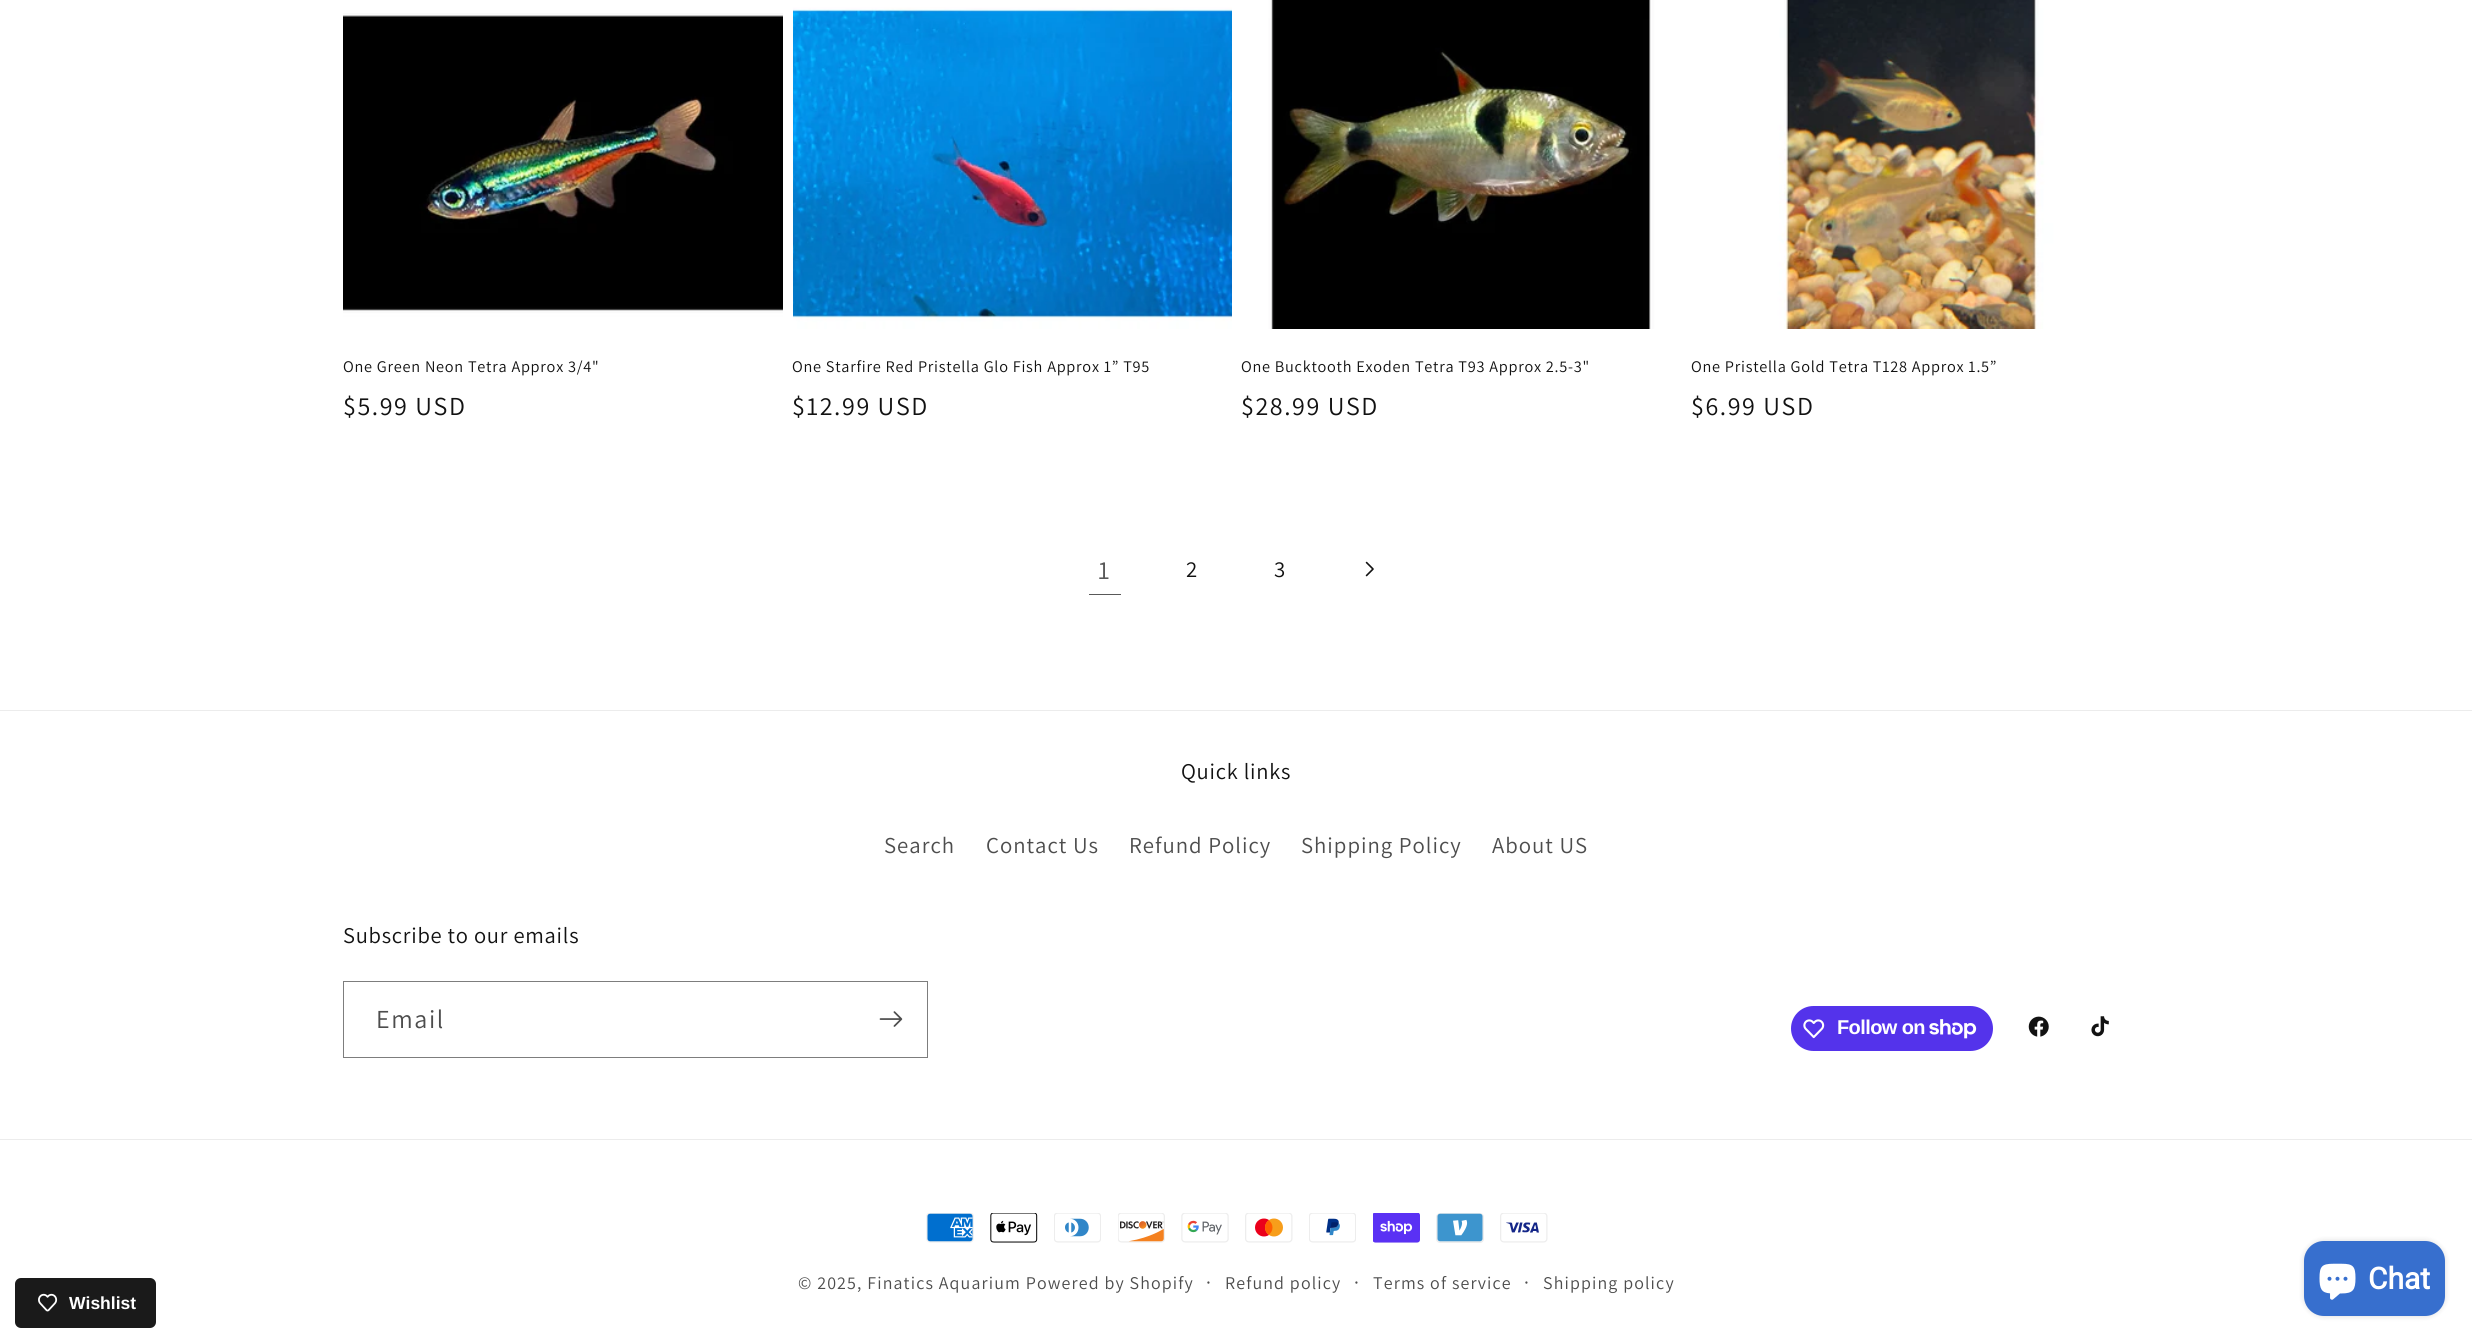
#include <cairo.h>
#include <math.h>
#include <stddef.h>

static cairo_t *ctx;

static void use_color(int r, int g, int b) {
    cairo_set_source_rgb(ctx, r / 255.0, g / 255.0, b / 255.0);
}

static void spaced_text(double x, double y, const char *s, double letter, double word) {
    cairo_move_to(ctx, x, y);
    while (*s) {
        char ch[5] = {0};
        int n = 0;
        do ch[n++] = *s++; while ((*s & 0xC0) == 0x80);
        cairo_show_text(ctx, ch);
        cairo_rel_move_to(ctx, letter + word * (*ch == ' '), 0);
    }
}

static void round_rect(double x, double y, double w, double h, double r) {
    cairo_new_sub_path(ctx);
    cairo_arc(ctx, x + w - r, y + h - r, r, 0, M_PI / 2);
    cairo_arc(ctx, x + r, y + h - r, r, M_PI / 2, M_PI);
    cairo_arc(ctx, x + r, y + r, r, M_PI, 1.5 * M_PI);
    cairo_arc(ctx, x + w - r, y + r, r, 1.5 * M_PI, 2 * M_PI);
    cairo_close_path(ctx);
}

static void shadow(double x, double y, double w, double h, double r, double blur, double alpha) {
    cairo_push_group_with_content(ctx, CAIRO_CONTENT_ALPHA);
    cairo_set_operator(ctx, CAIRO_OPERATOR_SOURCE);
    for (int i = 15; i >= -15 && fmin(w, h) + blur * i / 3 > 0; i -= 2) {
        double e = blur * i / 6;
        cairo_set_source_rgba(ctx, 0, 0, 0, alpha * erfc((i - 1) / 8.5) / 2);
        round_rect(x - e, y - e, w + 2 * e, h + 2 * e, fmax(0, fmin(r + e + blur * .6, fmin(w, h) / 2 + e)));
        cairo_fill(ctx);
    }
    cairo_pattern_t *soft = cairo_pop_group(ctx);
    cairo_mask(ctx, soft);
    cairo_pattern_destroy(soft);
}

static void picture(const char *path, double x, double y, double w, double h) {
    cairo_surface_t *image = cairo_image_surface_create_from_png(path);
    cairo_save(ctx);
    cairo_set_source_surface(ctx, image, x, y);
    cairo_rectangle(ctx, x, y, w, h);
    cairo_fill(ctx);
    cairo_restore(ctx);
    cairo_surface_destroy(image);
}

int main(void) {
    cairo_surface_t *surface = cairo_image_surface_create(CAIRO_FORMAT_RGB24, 2472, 1342);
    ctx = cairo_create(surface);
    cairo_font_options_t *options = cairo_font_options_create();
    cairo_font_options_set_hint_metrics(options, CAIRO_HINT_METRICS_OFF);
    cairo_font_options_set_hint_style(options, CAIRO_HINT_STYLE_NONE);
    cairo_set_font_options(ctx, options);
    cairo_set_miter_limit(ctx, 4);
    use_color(255, 255, 255);
    cairo_paint(ctx);
    picture("img1.png", 343, 0, 440, 329);
    cairo_select_font_face(ctx, "Assistant", CAIRO_FONT_SLANT_NORMAL, CAIRO_FONT_WEIGHT_NORMAL);
    cairo_set_font_size(ctx, 16.25);
    use_color(18, 18, 18);
    spaced_text(343, 372, "One Green Neon Tetra Approx 3/4\"", 0.75, 0);
    cairo_set_font_size(ctx, 26);
    spaced_text(343, 415, "$5.99 USD", 1.6, 0);
    picture("img2.png", 793, 0, 439, 329);
    cairo_set_font_size(ctx, 16.25);
    spaced_text(792, 372, "One Starfire Red Pristella Glo Fish Approx 1” T95", 0.75, 0);
    cairo_set_font_size(ctx, 26);
    spaced_text(792, 415, "$12.99 USD", 1.6, 0);
    picture("img3.png", 1241, 0, 440, 329);
    cairo_set_font_size(ctx, 16.25);
    spaced_text(1241, 372, "One Bucktooth Exoden Tetra T93 Approx 2.5-3\"", 0.75, 0);
    cairo_set_font_size(ctx, 26);
    spaced_text(1241, 415, "$28.99 USD", 1.6, 0);
    picture("img4.png", 1691, 0, 439, 329);
    cairo_set_font_size(ctx, 16.25);
    spaced_text(1691, 372, "One Pristella Gold Tetra T128 Approx 1.5”", 0.75, 0);
    cairo_set_font_size(ctx, 26);
    spaced_text(1691, 415, "$6.99 USD", 1.6, 0);
    use_color(89, 89, 89);
    spaced_text(1098, 579, "1", 1, 0);
    cairo_rectangle(ctx, 1089, 594, 32, 1);
    cairo_fill(ctx);
    cairo_set_font_size(ctx, 22.75);
    use_color(18, 18, 18);
    spaced_text(1186, 577, "2", 1, 0);
    spaced_text(1274, 577, "3", 1, 0);
    picture("img5.png", 1365, 561, 9, 16);
    use_color(236, 236, 236);
    cairo_rectangle(ctx, 0, 710, 2472, 1);
    cairo_fill(ctx);
    cairo_set_font_size(ctx, 22.5);
    use_color(18, 18, 18);
    spaced_text(1181, 779, "Quick links", 0.75, 0);
    cairo_set_font_size(ctx, 22.75);
    use_color(77, 77, 77);
    spaced_text(884, 853, "Search", 1, 0);
    spaced_text(986, 853, "Contact Us", 1, 0);
    spaced_text(1129, 853, "Refund Policy", 1, 0);
    spaced_text(1301, 853, "Shipping Policy", 1, 0);
    spaced_text(1492, 853, "About US", 1, 0);
    cairo_set_font_size(ctx, 22.5);
    use_color(18, 18, 18);
    spaced_text(343, 943, "Subscribe to our emails", 0.75, 0);
    cairo_rectangle(ctx, 343.5, 981.5, 584, 76);
    use_color(125, 125, 125);
    cairo_set_line_width(ctx, 1);
    cairo_stroke(ctx);
    cairo_set_font_size(ctx, 26);
    use_color(77, 77, 77);
    spaced_text(376, 1028, "Email", 1.6, 0);
    picture("img6.png", 879, 1011, 24, 16);
    use_color(84, 51, 235);
    round_rect(1791, 1006, 202, 45, 22.5);
    cairo_fill(ctx);
    picture("img7.png", 1803, 1019, 22, 20);
    cairo_select_font_face(ctx, "Liberation Sans", CAIRO_FONT_SLANT_NORMAL, CAIRO_FONT_WEIGHT_BOLD);
    cairo_set_font_size(ctx, 20);
    use_color(255, 255, 255);
    spaced_text(1837, 1034, "Follow on", -0.6, 0);
    picture("img8.png", 1929, 1019, 48, 20);
    picture("img9.png", 2028, 1016, 21, 21);
    picture("img10.png", 2091, 1016, 18, 21);
    use_color(236, 236, 236);
    cairo_rectangle(ctx, 0, 1139, 2472, 1);
    cairo_fill(ctx);
    picture("img11.png", 926, 1213, 48, 30);
    picture("img12.png", 990, 1213, 48, 30);
    picture("img13.png", 1054, 1213, 47, 30);
    picture("img14.png", 1118, 1213, 47, 30);
    picture("img15.png", 1181, 1213, 48, 30);
    picture("img16.png", 1245, 1213, 48, 30);
    picture("img17.png", 1309, 1213, 47, 30);
    picture("img18.png", 1373, 1213, 47, 30);
    picture("img19.png", 1436, 1213, 48, 30);
    picture("img20.png", 1500, 1213, 48, 30);
    cairo_select_font_face(ctx, "Assistant", CAIRO_FONT_SLANT_NORMAL, CAIRO_FONT_WEIGHT_NORMAL);
    cairo_set_font_size(ctx, 17.9);
    use_color(77, 77, 77);
    spaced_text(798, 1289, "© 2025, Finatics Aquarium Powered by Shopify", 1.15, 0);
    cairo_set_font_size(ctx, 20);
    spaced_text(1206, 1289, "·", 1.15, 0);
    cairo_set_font_size(ctx, 17.9);
    spaced_text(1225, 1289, "Refund policy", 1.15, 0);
    cairo_set_font_size(ctx, 20);
    spaced_text(1354, 1289, "·", 1.15, 0);
    cairo_set_font_size(ctx, 17.9);
    spaced_text(1373, 1289, "Terms of service", 1.15, 0);
    cairo_set_font_size(ctx, 20);
    spaced_text(1524, 1289, "·", 1.15, 0);
    cairo_set_font_size(ctx, 17.9);
    spaced_text(1543, 1289, "Shipping policy", 1.15, 0);
    use_color(0, 0, 0);
    shadow(2304, 1241, 141, 75, 20, 3, 0.15);
    use_color(55, 111, 206);
    round_rect(2304, 1241, 141, 75, 20);
    cairo_fill(ctx);
    picture("img21.png", 2319, 1263, 37, 37);
    cairo_select_font_face(ctx, "Roboto", CAIRO_FONT_SLANT_NORMAL, CAIRO_FONT_WEIGHT_BOLD);
    cairo_set_font_size(ctx, 30);
    use_color(255, 255, 255);
    cairo_move_to(ctx, 2368, 1289);
    cairo_show_text(ctx, "Chat");
    use_color(26, 26, 26);
    round_rect(15, 1278, 141, 50, 6);
    cairo_fill(ctx);
    picture("img22.png", 38, 1293, 20, 19);
    cairo_select_font_face(ctx, "Liberation Sans", CAIRO_FONT_SLANT_NORMAL, CAIRO_FONT_WEIGHT_BOLD);
    cairo_set_font_size(ctx, 17.5);
    use_color(255, 255, 255);
    cairo_move_to(ctx, 69, 1309);
    cairo_show_text(ctx, "Wishlist");
    cairo_surface_write_to_png(surface, "result.png");
    cairo_font_options_destroy(options);
    cairo_destroy(ctx);
    cairo_surface_destroy(surface);
    return 0;
}
